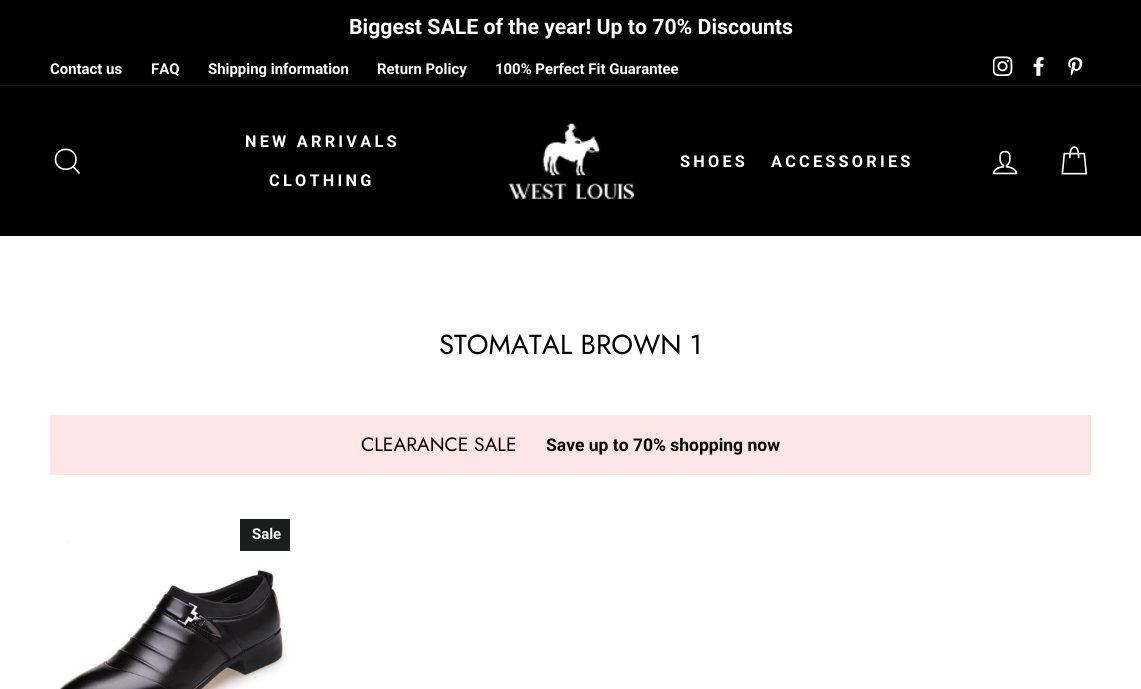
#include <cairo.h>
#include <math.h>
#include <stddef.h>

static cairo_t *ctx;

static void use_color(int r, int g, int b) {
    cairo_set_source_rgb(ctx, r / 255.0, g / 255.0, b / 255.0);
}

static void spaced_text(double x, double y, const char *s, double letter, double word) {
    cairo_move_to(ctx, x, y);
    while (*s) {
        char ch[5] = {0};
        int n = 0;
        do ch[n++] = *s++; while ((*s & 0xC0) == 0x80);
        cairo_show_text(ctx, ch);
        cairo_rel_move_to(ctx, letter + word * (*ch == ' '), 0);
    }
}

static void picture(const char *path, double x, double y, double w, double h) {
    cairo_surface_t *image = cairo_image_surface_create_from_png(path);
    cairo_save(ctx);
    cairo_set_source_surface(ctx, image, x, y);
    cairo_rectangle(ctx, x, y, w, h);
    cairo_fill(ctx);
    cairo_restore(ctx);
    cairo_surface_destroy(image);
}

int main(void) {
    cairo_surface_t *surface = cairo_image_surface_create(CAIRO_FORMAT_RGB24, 1141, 689);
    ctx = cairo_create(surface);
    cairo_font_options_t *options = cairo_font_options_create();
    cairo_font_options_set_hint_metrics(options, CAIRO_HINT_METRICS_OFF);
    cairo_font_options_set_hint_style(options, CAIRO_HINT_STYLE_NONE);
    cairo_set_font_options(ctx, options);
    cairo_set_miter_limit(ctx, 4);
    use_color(255, 255, 255);
    cairo_paint(ctx);
    use_color(0, 0, 0);
    cairo_rectangle(ctx, 0, 0, 1141, 85);
    cairo_fill(ctx);
    cairo_select_font_face(ctx, "Roboto", CAIRO_FONT_SLANT_NORMAL, CAIRO_FONT_WEIGHT_BOLD);
    cairo_set_font_size(ctx, 21.25);
    use_color(255, 255, 255);
    cairo_move_to(ctx, 349, 34);
    cairo_show_text(ctx, "Biggest SALE of the year! Up to 70% Discounts");
    cairo_set_font_size(ctx, 14.9);
    cairo_move_to(ctx, 50, 74);
    cairo_show_text(ctx, "Contact us");
    cairo_move_to(ctx, 151, 74);
    cairo_show_text(ctx, "FAQ");
    cairo_move_to(ctx, 208, 74);
    cairo_show_text(ctx, "Shipping information");
    cairo_move_to(ctx, 377, 74);
    cairo_show_text(ctx, "Return Policy");
    cairo_move_to(ctx, 495, 74);
    cairo_show_text(ctx, "100% Perfect Fit Guarantee");
    picture("img1.png", 993, 56, 20, 20);
    picture("img2.png", 1033, 57, 11, 19);
    picture("img3.png", 1068, 57, 15, 19);
    use_color(0, 0, 0);
    cairo_rectangle(ctx, 0, 86, 1141, 150);
    cairo_fill(ctx);
    use_color(26, 26, 26);
    cairo_rectangle(ctx, 0, 85, 1141, 1);
    cairo_fill(ctx);
    cairo_new_path(ctx);
    cairo_move_to(ctx, 76, 159.5);
    cairo_curve_to(ctx, 76, 172.5, 55.5, 172.5, 55.5, 159.5);
    cairo_curve_to(ctx, 55.5, 146, 76, 146, 76, 159.5);
    cairo_close_path(ctx);
    cairo_move_to(ctx, 79.5, 173.5);
    cairo_line_to(ctx, 73, 166.5);
    use_color(255, 255, 255);
    cairo_set_line_width(ctx, 1.6);
    cairo_stroke(ctx);
    cairo_set_font_size(ctx, 16.25);
    spaced_text(245, 147, "NEW ARRIVALS", 3.25, 0);
    spaced_text(269, 186, "CLOTHING", 3.25, 0);
    picture("img4.png", 508, 123, 126, 76);
    spaced_text(680, 167, "SHOES", 3.25, 0);
    spaced_text(771, 167, "ACCESSORIES", 3.25, 0);
    picture("img5.png", 992, 150, 26, 25);
    picture("img6.png", 1061, 146, 27, 29);
    cairo_select_font_face(ctx, "Jost", CAIRO_FONT_SLANT_NORMAL, CAIRO_FONT_WEIGHT_NORMAL);
    cairo_set_font_size(ctx, 27.5);
    use_color(0, 0, 0);
    cairo_move_to(ctx, 439, 354);
    cairo_show_text(ctx, "STOMATAL BROWN 1");
    use_color(255, 230, 230);
    cairo_rectangle(ctx, 50, 415, 1041, 60);
    cairo_fill(ctx);
    cairo_set_font_size(ctx, 19.25);
    use_color(0, 0, 0);
    cairo_move_to(ctx, 361, 451);
    cairo_show_text(ctx, "CLEARANCE SALE");
    cairo_select_font_face(ctx, "Roboto", CAIRO_FONT_SLANT_NORMAL, CAIRO_FONT_WEIGHT_BOLD);
    cairo_set_font_size(ctx, 17.5);
    cairo_move_to(ctx, 546, 451);
    cairo_show_text(ctx, "Save up to 70% shopping now");
    picture("img7.png", 59, 541, 228, 148);
    use_color(28, 29, 29);
    cairo_rectangle(ctx, 240, 519, 50, 32);
    cairo_fill(ctx);
    cairo_set_font_size(ctx, 14.9);
    use_color(255, 255, 255);
    cairo_move_to(ctx, 252, 539);
    cairo_show_text(ctx, "Sale");
    cairo_surface_write_to_png(surface, "result.png");
    cairo_font_options_destroy(options);
    cairo_destroy(ctx);
    cairo_surface_destroy(surface);
    return 0;
}
